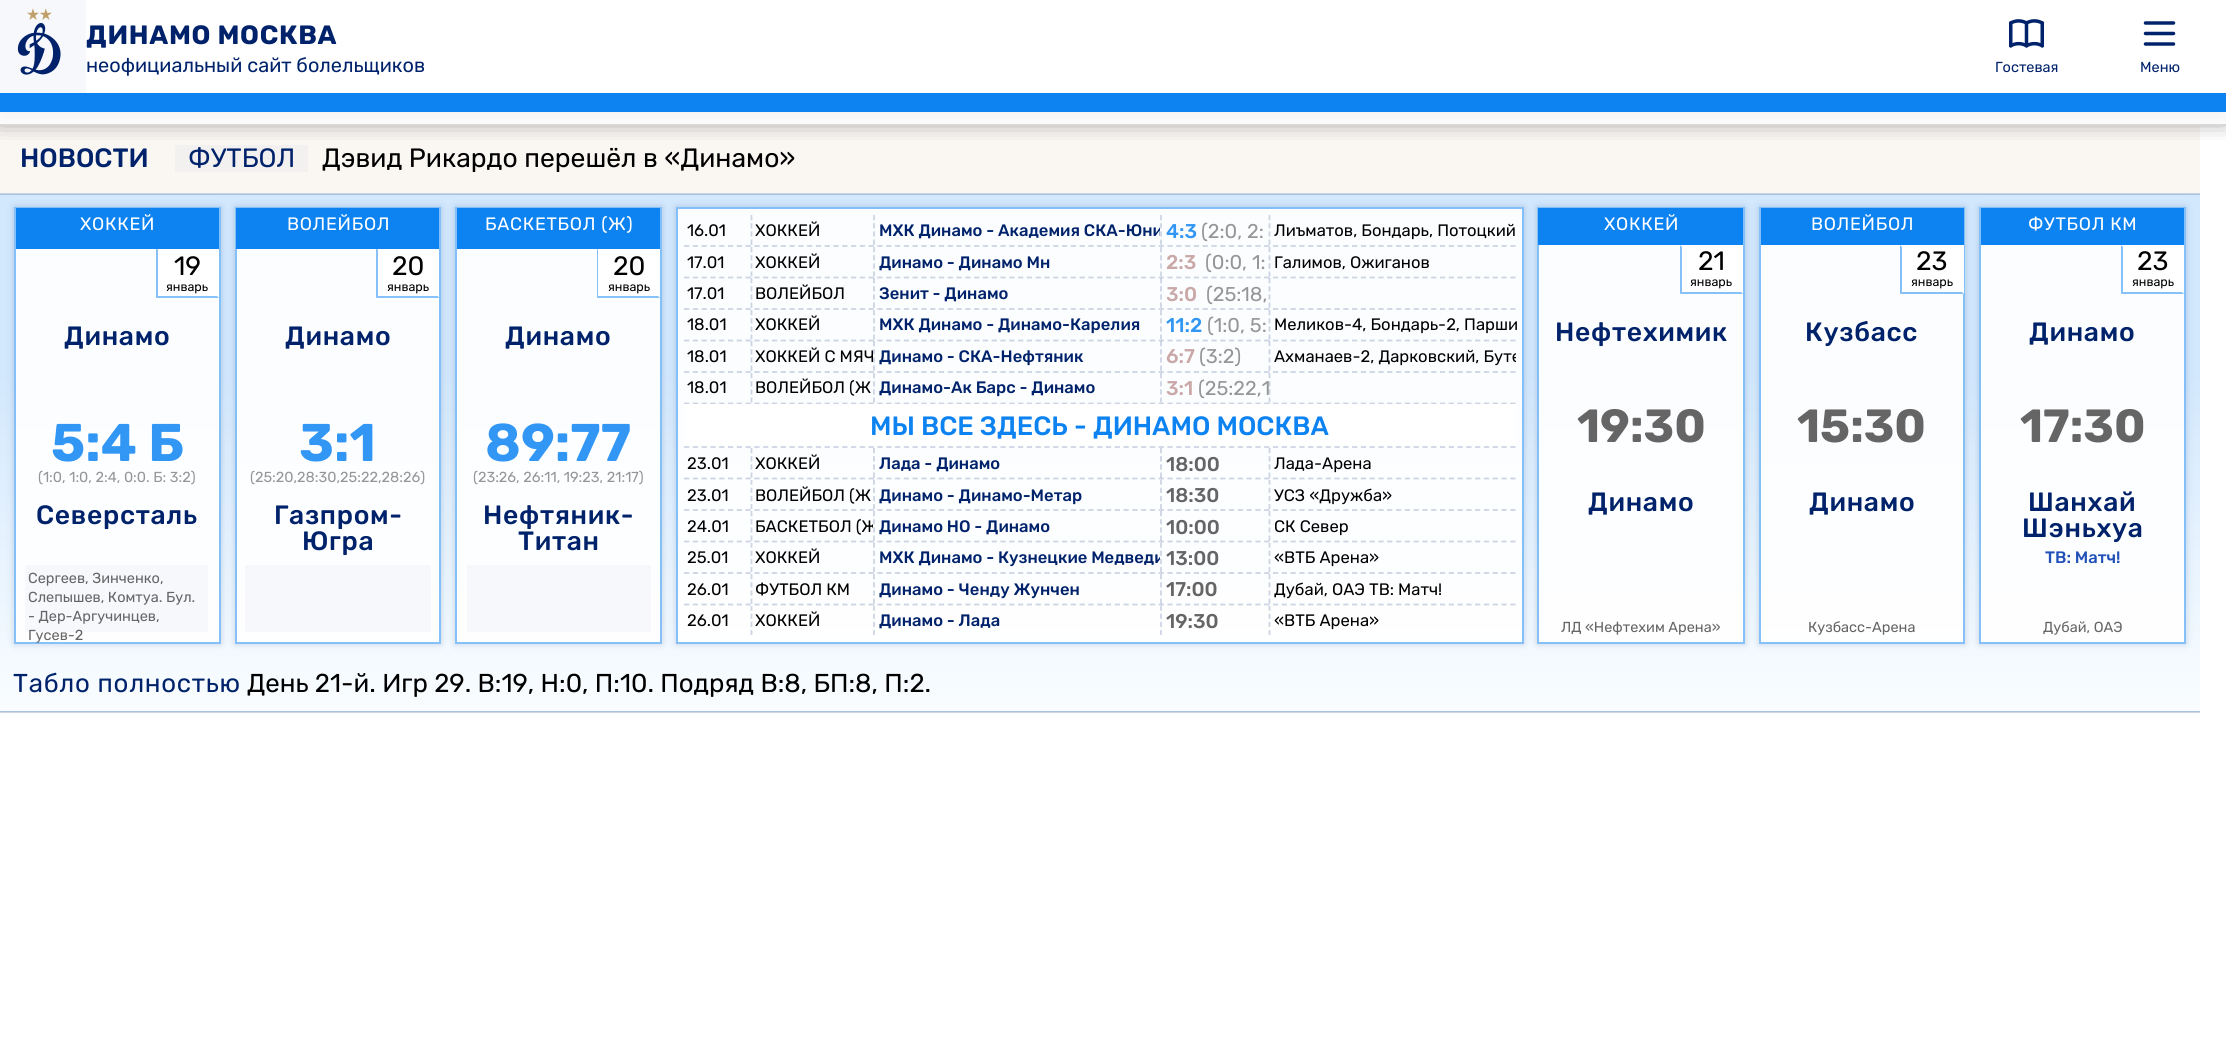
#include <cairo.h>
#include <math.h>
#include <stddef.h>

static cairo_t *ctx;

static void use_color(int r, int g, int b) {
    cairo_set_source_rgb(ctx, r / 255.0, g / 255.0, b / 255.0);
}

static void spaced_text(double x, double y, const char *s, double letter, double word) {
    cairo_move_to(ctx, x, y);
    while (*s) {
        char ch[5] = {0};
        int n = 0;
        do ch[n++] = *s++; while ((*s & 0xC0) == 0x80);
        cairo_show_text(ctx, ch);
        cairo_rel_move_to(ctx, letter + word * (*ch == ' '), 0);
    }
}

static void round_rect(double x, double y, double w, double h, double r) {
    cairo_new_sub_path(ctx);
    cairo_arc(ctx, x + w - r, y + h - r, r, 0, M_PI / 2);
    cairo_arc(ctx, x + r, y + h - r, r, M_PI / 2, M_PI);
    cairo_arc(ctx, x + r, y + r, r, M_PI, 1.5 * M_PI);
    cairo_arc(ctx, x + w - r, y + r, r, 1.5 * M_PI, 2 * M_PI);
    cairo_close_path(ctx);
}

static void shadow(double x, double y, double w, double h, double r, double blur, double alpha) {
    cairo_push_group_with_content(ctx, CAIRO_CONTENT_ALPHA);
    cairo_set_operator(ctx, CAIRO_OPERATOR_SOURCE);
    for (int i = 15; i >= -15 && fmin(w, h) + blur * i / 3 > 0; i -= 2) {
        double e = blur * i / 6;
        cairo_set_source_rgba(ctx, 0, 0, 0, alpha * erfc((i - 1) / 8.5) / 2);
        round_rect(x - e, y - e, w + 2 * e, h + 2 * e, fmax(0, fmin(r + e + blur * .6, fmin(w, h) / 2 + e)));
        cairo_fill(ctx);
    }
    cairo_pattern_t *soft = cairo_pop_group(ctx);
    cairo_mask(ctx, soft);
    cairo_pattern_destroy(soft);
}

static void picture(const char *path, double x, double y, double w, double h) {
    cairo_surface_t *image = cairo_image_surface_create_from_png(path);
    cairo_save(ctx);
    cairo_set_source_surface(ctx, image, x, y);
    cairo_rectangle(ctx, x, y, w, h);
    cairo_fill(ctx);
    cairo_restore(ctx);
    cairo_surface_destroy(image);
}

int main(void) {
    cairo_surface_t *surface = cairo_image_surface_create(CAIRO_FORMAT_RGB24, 2226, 1059);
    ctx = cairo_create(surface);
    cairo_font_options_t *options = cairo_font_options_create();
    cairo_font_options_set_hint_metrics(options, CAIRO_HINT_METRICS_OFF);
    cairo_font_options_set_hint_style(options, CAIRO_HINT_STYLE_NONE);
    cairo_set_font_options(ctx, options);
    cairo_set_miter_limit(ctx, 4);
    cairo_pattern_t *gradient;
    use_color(255, 255, 255);
    cairo_paint(ctx);
    use_color(207, 213, 227);
    cairo_rectangle(ctx, 0, 712, 2200, 1);
    cairo_fill(ctx);
    use_color(250, 247, 243);
    cairo_rectangle(ctx, 0, 126, 2200, 67);
    cairo_fill(ctx);
    use_color(243, 241, 239);
    cairo_rectangle(ctx, 175, 145, 133, 27);
    cairo_fill(ctx);
    cairo_save(ctx);
    cairo_rectangle(ctx, 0, 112, 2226, 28);
    cairo_clip(ctx);
    use_color(0, 0, 0);
    shadow(0, 0, 2226, 112, 0, 13.5, 1);
    cairo_restore(ctx);
    use_color(13, 131, 242);
    cairo_rectangle(ctx, 0, 93, 2226, 19);
    cairo_fill(ctx);
    use_color(247, 248, 251);
    cairo_rectangle(ctx, 0, 0, 86, 93);
    cairo_fill(ctx);
    cairo_rectangle(ctx, -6, -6, 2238, 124);
    cairo_set_source_rgba(ctx, 1, 1, 1, 0.92);
    cairo_set_line_width(ctx, 12);
    cairo_stroke(ctx);
    picture("img1.png", 17, 8, 44, 67);
    cairo_select_font_face(ctx, "Rubik", CAIRO_FONT_SLANT_NORMAL, CAIRO_FONT_WEIGHT_BOLD);
    cairo_set_font_size(ctx, 26.5);
    use_color(0, 34, 107);
    spaced_text(86, 44, "ДИНАМО МОСКВА", 0.7, 0);
    cairo_select_font_face(ctx, "Rubik", CAIRO_FONT_SLANT_NORMAL, CAIRO_FONT_WEIGHT_NORMAL);
    cairo_set_font_size(ctx, 19.9);
    cairo_move_to(ctx, 86, 72);
    cairo_show_text(ctx, "неофициальный сайт болельщиков");
    picture("img2.png", 2009, 19, 35, 29);
    cairo_set_font_size(ctx, 14.5);
    cairo_move_to(ctx, 1995, 72);
    cairo_show_text(ctx, "Гостевая");
    cairo_new_path(ctx);
    cairo_move_to(ctx, 2145.5, 23);
    cairo_line_to(ctx, 2173.5, 23);
    cairo_move_to(ctx, 2145.5, 33.5);
    cairo_line_to(ctx, 2173.5, 33.5);
    cairo_move_to(ctx, 2145.5, 44);
    cairo_line_to(ctx, 2173.5, 44);
    cairo_set_line_width(ctx, 3.5);
    cairo_set_line_cap(ctx, CAIRO_LINE_CAP_ROUND);
    cairo_set_line_join(ctx, CAIRO_LINE_JOIN_ROUND);
    cairo_stroke(ctx);
    cairo_move_to(ctx, 2140, 72);
    cairo_show_text(ctx, "Меню");
    cairo_select_font_face(ctx, "Rubik Medium", CAIRO_FONT_SLANT_NORMAL, CAIRO_FONT_WEIGHT_NORMAL);
    cairo_set_font_size(ctx, 26.5);
    cairo_move_to(ctx, 20, 167);
    cairo_show_text(ctx, "НОВОСТИ");
    cairo_select_font_face(ctx, "Rubik", CAIRO_FONT_SLANT_NORMAL, CAIRO_FONT_WEIGHT_NORMAL);
    cairo_move_to(ctx, 188, 167);
    cairo_show_text(ctx, "ФУТБОЛ");
    use_color(0, 0, 0);
    cairo_move_to(ctx, 322, 167);
    cairo_show_text(ctx, "Дэвид Рикардо перешёл в «Динамо»");
    gradient = cairo_pattern_create_linear(1100, -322, 1100, 194);
    cairo_pattern_add_color_stop_rgba(gradient, 0, 0.663, 0.761, 0.882, 1);
    cairo_pattern_add_color_stop_rgba(gradient, 0.35, 0.663, 0.761, 0.882, 1);
    cairo_pattern_add_color_stop_rgba(gradient, 1, 0.792, 0.827, 0.89, 1);
    cairo_set_source(ctx, gradient);
    cairo_pattern_destroy(gradient);
    cairo_rectangle(ctx, 0, 193, 2200, 1);
    cairo_fill(ctx);
    gradient = cairo_pattern_create_linear(1100, 194, 1100, 711);
    cairo_pattern_add_color_stop_rgba(gradient, 0, 0.824, 0.91, 0.992, 1);
    cairo_pattern_add_color_stop_rgba(gradient, 0.35, 0.824, 0.91, 0.992, 1);
    cairo_pattern_add_color_stop_rgba(gradient, 1, 0.98, 0.992, 1, 1);
    cairo_set_source(ctx, gradient);
    cairo_pattern_destroy(gradient);
    cairo_rectangle(ctx, 0, 195, 2200, 516);
    cairo_fill(ctx);
    gradient = cairo_pattern_create_linear(1100, 194, 1100, 711);
    cairo_pattern_add_color_stop_rgba(gradient, 0, 0.984, 0.992, 1, 1);
    cairo_pattern_add_color_stop_rgba(gradient, 0.35, 0.984, 0.992, 1, 1);
    cairo_pattern_add_color_stop_rgba(gradient, 1, 1, 1, 1, 1);
    cairo_set_source(ctx, gradient);
    cairo_pattern_destroy(gradient);
    cairo_rectangle(ctx, 1759, 207, 206, 437);
    cairo_fill(ctx);
    cairo_rectangle(ctx, 235, 207, 206, 437);
    cairo_fill(ctx);
    cairo_rectangle(ctx, 676, 207, 848, 437);
    cairo_fill(ctx);
    gradient = cairo_pattern_create_linear(1100, 194, 1100, 711);
    cairo_pattern_add_color_stop_rgba(gradient, 0, 0.667, 0.761, 0.882, 1);
    cairo_pattern_add_color_stop_rgba(gradient, 0.35, 0.667, 0.761, 0.882, 1);
    cairo_pattern_add_color_stop_rgba(gradient, 1, 0.796, 0.827, 0.89, 1);
    cairo_set_source(ctx, gradient);
    cairo_pattern_destroy(gradient);
    cairo_rectangle(ctx, 0, 194, 2200, 1);
    cairo_fill(ctx);
    gradient = cairo_pattern_create_linear(1100, 710, 1100, 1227);
    cairo_pattern_add_color_stop_rgba(gradient, 0, 0.663, 0.761, 0.882, 1);
    cairo_pattern_add_color_stop_rgba(gradient, 0.35, 0.663, 0.761, 0.882, 1);
    cairo_pattern_add_color_stop_rgba(gradient, 1, 0.792, 0.827, 0.89, 1);
    cairo_set_source(ctx, gradient);
    cairo_pattern_destroy(gradient);
    cairo_rectangle(ctx, 0, 711, 2200, 1);
    cairo_fill(ctx);
    cairo_save(ctx);
    cairo_set_fill_rule(ctx, CAIRO_FILL_RULE_EVEN_ODD);
    cairo_new_path(ctx);
    cairo_move_to(ctx, 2, 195);
    cairo_line_to(ctx, 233, 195);
    cairo_line_to(ctx, 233, 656);
    cairo_line_to(ctx, 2, 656);
    cairo_close_path(ctx);
    cairo_move_to(ctx, 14, 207);
    cairo_line_to(ctx, 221, 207);
    cairo_line_to(ctx, 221, 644);
    cairo_line_to(ctx, 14, 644);
    cairo_close_path(ctx);
    cairo_clip(ctx);
    use_color(0, 34, 107);
    shadow(14, 207, 207, 437, 0, 3.5, 0.19);
    cairo_restore(ctx);
    cairo_set_source_rgba(ctx, 1, 1, 1, 0.92);
    cairo_rectangle(ctx, 14, 207, 207, 437);
    cairo_fill(ctx);
    cairo_rectangle(ctx, 15, 208, 205, 435);
    cairo_set_source_rgba(ctx, 0.051, 0.514, 0.949, 0.5);
    cairo_set_line_width(ctx, 2);
    cairo_set_line_cap(ctx, CAIRO_LINE_CAP_BUTT);
    cairo_set_line_join(ctx, CAIRO_LINE_JOIN_MITER);
    cairo_stroke(ctx);
    use_color(255, 255, 255);
    cairo_rectangle(ctx, 156, 249, 63, 49);
    cairo_fill(ctx);
    use_color(134, 193, 249);
    cairo_new_path(ctx);
    cairo_move_to(ctx, 219, 298);
    cairo_line_to(ctx, 156, 298);
    cairo_line_to(ctx, 158, 296);
    cairo_line_to(ctx, 217, 296);
    cairo_close_path(ctx);
    cairo_fill(ctx);
    cairo_set_source_rgba(ctx, 0.051, 0.514, 0.949, 0.5);
    cairo_new_path(ctx);
    cairo_move_to(ctx, 156, 298);
    cairo_line_to(ctx, 156, 248);
    cairo_line_to(ctx, 158, 250);
    cairo_line_to(ctx, 158, 296);
    cairo_close_path(ctx);
    cairo_fill(ctx);
    use_color(13, 131, 242);
    cairo_rectangle(ctx, 16, 208, 203, 41);
    cairo_fill(ctx);
    cairo_set_font_size(ctx, 18);
    use_color(255, 255, 255);
    spaced_text(80, 230, "ХОККЕЙ", 0.7, 0);
    cairo_set_font_size(ctx, 26.5);
    use_color(0, 0, 0);
    cairo_move_to(ctx, 174, 275);
    cairo_show_text(ctx, "19");
    cairo_set_font_size(ctx, 12.5);
    cairo_move_to(ctx, 166, 291);
    cairo_show_text(ctx, "январь");
    cairo_select_font_face(ctx, "Rubik Medium", CAIRO_FONT_SLANT_NORMAL, CAIRO_FONT_WEIGHT_NORMAL);
    cairo_set_font_size(ctx, 26.5);
    use_color(0, 34, 107);
    spaced_text(64, 345, "Динамо", 0.7, 0);
    cairo_select_font_face(ctx, "Rubik", CAIRO_FONT_SLANT_NORMAL, CAIRO_FONT_WEIGHT_BOLD);
    cairo_set_font_size(ctx, 53);
    use_color(49, 150, 244);
    cairo_move_to(ctx, 51, 461);
    cairo_show_text(ctx, "5:4 Б");
    cairo_select_font_face(ctx, "Rubik", CAIRO_FONT_SLANT_NORMAL, CAIRO_FONT_WEIGHT_NORMAL);
    cairo_set_font_size(ctx, 14.5);
    use_color(150, 150, 150);
    cairo_move_to(ctx, 38, 482);
    cairo_show_text(ctx, "(1:0, 1:0, 2:4, 0:0. Б: 3:2)");
    cairo_select_font_face(ctx, "Rubik Medium", CAIRO_FONT_SLANT_NORMAL, CAIRO_FONT_WEIGHT_NORMAL);
    cairo_set_font_size(ctx, 26.5);
    use_color(0, 34, 107);
    spaced_text(36, 524, "Северсталь", 0.7, 0);
    use_color(246, 248, 251);
    cairo_rectangle(ctx, 25, 565, 183, 67);
    cairo_fill(ctx);
    cairo_select_font_face(ctx, "Rubik", CAIRO_FONT_SLANT_NORMAL, CAIRO_FONT_WEIGHT_NORMAL);
    cairo_set_font_size(ctx, 14.5);
    use_color(101, 101, 102);
    cairo_move_to(ctx, 28, 583);
    cairo_show_text(ctx, "Сергеев, Зинченко,");
    cairo_move_to(ctx, 28, 602);
    cairo_show_text(ctx, "Слепышев, Комтуа. Бул.");
    cairo_move_to(ctx, 28, 621);
    cairo_show_text(ctx, "- Дер-Аргучинцев,");
    cairo_move_to(ctx, 28, 640);
    cairo_show_text(ctx, "Гусев-2");
    cairo_save(ctx);
    cairo_set_fill_rule(ctx, CAIRO_FILL_RULE_EVEN_ODD);
    cairo_new_path(ctx);
    cairo_move_to(ctx, 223, 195);
    cairo_line_to(ctx, 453, 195);
    cairo_line_to(ctx, 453, 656);
    cairo_line_to(ctx, 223, 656);
    cairo_close_path(ctx);
    cairo_move_to(ctx, 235, 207);
    cairo_line_to(ctx, 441, 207);
    cairo_line_to(ctx, 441, 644);
    cairo_line_to(ctx, 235, 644);
    cairo_close_path(ctx);
    cairo_clip(ctx);
    use_color(0, 34, 107);
    shadow(235, 207, 206, 437, 0, 3.5, 0.19);
    cairo_restore(ctx);
    cairo_rectangle(ctx, 236, 208, 204, 435);
    cairo_set_source_rgba(ctx, 0.051, 0.514, 0.949, 0.5);
    cairo_stroke(ctx);
    use_color(255, 255, 255);
    cairo_rectangle(ctx, 376, 249, 63, 49);
    cairo_fill(ctx);
    use_color(134, 193, 249);
    cairo_new_path(ctx);
    cairo_move_to(ctx, 439, 298);
    cairo_line_to(ctx, 376, 298);
    cairo_line_to(ctx, 378, 296);
    cairo_line_to(ctx, 438, 296);
    cairo_close_path(ctx);
    cairo_fill(ctx);
    cairo_set_source_rgba(ctx, 0.051, 0.514, 0.949, 0.5);
    cairo_new_path(ctx);
    cairo_move_to(ctx, 376, 298);
    cairo_line_to(ctx, 376, 248);
    cairo_line_to(ctx, 378, 250);
    cairo_line_to(ctx, 378, 296);
    cairo_close_path(ctx);
    cairo_fill(ctx);
    use_color(13, 131, 242);
    cairo_rectangle(ctx, 236, 208, 203, 41);
    cairo_fill(ctx);
    cairo_set_font_size(ctx, 18);
    use_color(255, 255, 255);
    spaced_text(287, 230, "ВОЛЕЙБОЛ", 0.7, 0);
    cairo_set_font_size(ctx, 26.5);
    use_color(0, 0, 0);
    cairo_move_to(ctx, 392, 275);
    cairo_show_text(ctx, "20");
    cairo_set_font_size(ctx, 12.5);
    cairo_move_to(ctx, 387, 291);
    cairo_show_text(ctx, "январь");
    cairo_select_font_face(ctx, "Rubik Medium", CAIRO_FONT_SLANT_NORMAL, CAIRO_FONT_WEIGHT_NORMAL);
    cairo_set_font_size(ctx, 26.5);
    use_color(0, 34, 107);
    spaced_text(285, 345, "Динамо", 0.7, 0);
    cairo_select_font_face(ctx, "Rubik", CAIRO_FONT_SLANT_NORMAL, CAIRO_FONT_WEIGHT_BOLD);
    cairo_set_font_size(ctx, 53);
    use_color(49, 150, 244);
    cairo_move_to(ctx, 299, 461);
    cairo_show_text(ctx, "3:1");
    cairo_select_font_face(ctx, "Rubik", CAIRO_FONT_SLANT_NORMAL, CAIRO_FONT_WEIGHT_NORMAL);
    cairo_set_font_size(ctx, 14.5);
    use_color(150, 150, 150);
    cairo_move_to(ctx, 250, 482);
    cairo_show_text(ctx, "(25:20,28:30,25:22,28:26)");
    cairo_select_font_face(ctx, "Rubik Medium", CAIRO_FONT_SLANT_NORMAL, CAIRO_FONT_WEIGHT_NORMAL);
    cairo_set_font_size(ctx, 26.5);
    use_color(0, 34, 107);
    spaced_text(274, 524, "Газпром-", 0.7, 0);
    spaced_text(302, 550, "Югра", 0.7, 0);
    use_color(246, 248, 251);
    cairo_rectangle(ctx, 245, 565, 186, 67);
    cairo_fill(ctx);
    cairo_save(ctx);
    cairo_set_fill_rule(ctx, CAIRO_FILL_RULE_EVEN_ODD);
    cairo_new_path(ctx);
    cairo_move_to(ctx, 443, 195);
    cairo_line_to(ctx, 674, 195);
    cairo_line_to(ctx, 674, 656);
    cairo_line_to(ctx, 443, 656);
    cairo_close_path(ctx);
    cairo_move_to(ctx, 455, 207);
    cairo_line_to(ctx, 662, 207);
    cairo_line_to(ctx, 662, 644);
    cairo_line_to(ctx, 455, 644);
    cairo_close_path(ctx);
    cairo_clip(ctx);
    use_color(0, 34, 107);
    shadow(455, 207, 207, 437, 0, 3.5, 0.19);
    cairo_restore(ctx);
    cairo_set_source_rgba(ctx, 1, 1, 1, 0.92);
    cairo_rectangle(ctx, 455, 207, 207, 437);
    cairo_fill(ctx);
    cairo_rectangle(ctx, 456, 208, 205, 435);
    cairo_set_source_rgba(ctx, 0.051, 0.514, 0.949, 0.5);
    cairo_stroke(ctx);
    use_color(255, 255, 255);
    cairo_rectangle(ctx, 597, 249, 63, 49);
    cairo_fill(ctx);
    use_color(134, 193, 249);
    cairo_new_path(ctx);
    cairo_move_to(ctx, 660, 298);
    cairo_line_to(ctx, 597, 298);
    cairo_line_to(ctx, 598, 296);
    cairo_line_to(ctx, 658, 296);
    cairo_close_path(ctx);
    cairo_fill(ctx);
    cairo_set_source_rgba(ctx, 0.051, 0.514, 0.949, 0.5);
    cairo_new_path(ctx);
    cairo_move_to(ctx, 597, 298);
    cairo_line_to(ctx, 597, 248);
    cairo_line_to(ctx, 598, 250);
    cairo_line_to(ctx, 598, 296);
    cairo_close_path(ctx);
    cairo_fill(ctx);
    use_color(13, 131, 242);
    cairo_rectangle(ctx, 457, 208, 203, 41);
    cairo_fill(ctx);
    cairo_select_font_face(ctx, "Rubik", CAIRO_FONT_SLANT_NORMAL, CAIRO_FONT_WEIGHT_NORMAL);
    cairo_set_font_size(ctx, 18);
    use_color(255, 255, 255);
    spaced_text(485, 230, "БАСКЕТБОЛ (Ж)", 0.7, 0);
    cairo_set_font_size(ctx, 26.5);
    use_color(0, 0, 0);
    cairo_move_to(ctx, 613, 275);
    cairo_show_text(ctx, "20");
    cairo_set_font_size(ctx, 12.5);
    cairo_move_to(ctx, 608, 291);
    cairo_show_text(ctx, "январь");
    cairo_select_font_face(ctx, "Rubik Medium", CAIRO_FONT_SLANT_NORMAL, CAIRO_FONT_WEIGHT_NORMAL);
    cairo_set_font_size(ctx, 26.5);
    use_color(0, 34, 107);
    spaced_text(505, 345, "Динамо", 0.7, 0);
    cairo_select_font_face(ctx, "Rubik", CAIRO_FONT_SLANT_NORMAL, CAIRO_FONT_WEIGHT_BOLD);
    cairo_set_font_size(ctx, 53);
    use_color(49, 150, 244);
    cairo_move_to(ctx, 485, 461);
    cairo_show_text(ctx, "89:77");
    cairo_select_font_face(ctx, "Rubik", CAIRO_FONT_SLANT_NORMAL, CAIRO_FONT_WEIGHT_NORMAL);
    cairo_set_font_size(ctx, 14.5);
    use_color(150, 150, 150);
    cairo_move_to(ctx, 473, 482);
    cairo_show_text(ctx, "(23:26, 26:11, 19:23, 21:17)");
    cairo_select_font_face(ctx, "Rubik Medium", CAIRO_FONT_SLANT_NORMAL, CAIRO_FONT_WEIGHT_NORMAL);
    cairo_set_font_size(ctx, 26.5);
    use_color(0, 34, 107);
    spaced_text(483, 524, "Нефтяник-", 0.7, 0);
    spaced_text(518, 550, "Титан", 0.7, 0);
    use_color(246, 248, 251);
    cairo_rectangle(ctx, 467, 565, 184, 67);
    cairo_fill(ctx);
    cairo_save(ctx);
    cairo_set_fill_rule(ctx, CAIRO_FILL_RULE_EVEN_ODD);
    cairo_new_path(ctx);
    cairo_move_to(ctx, 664, 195);
    cairo_line_to(ctx, 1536, 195);
    cairo_line_to(ctx, 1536, 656);
    cairo_line_to(ctx, 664, 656);
    cairo_close_path(ctx);
    cairo_move_to(ctx, 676, 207);
    cairo_line_to(ctx, 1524, 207);
    cairo_line_to(ctx, 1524, 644);
    cairo_line_to(ctx, 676, 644);
    cairo_close_path(ctx);
    cairo_clip(ctx);
    use_color(0, 34, 107);
    shadow(676, 207, 848, 437, 0, 3.5, 0.19);
    cairo_restore(ctx);
    cairo_rectangle(ctx, 677, 208, 846, 435);
    cairo_set_source_rgba(ctx, 0.051, 0.514, 0.949, 0.5);
    cairo_stroke(ctx);
    cairo_new_path(ctx);
    cairo_move_to(ctx, 684, 246);
    cairo_line_to(ctx, 1515.5, 246);
    use_color(204, 212, 227);
    cairo_set_line_width(ctx, 1.8);
    cairo_set_dash(ctx, (double[]){5.25, 3.54}, 2, 0);
    cairo_stroke(ctx);
    cairo_new_path(ctx);
    cairo_move_to(ctx, 751.5, 215);
    cairo_line_to(ctx, 751.5, 245);
    cairo_set_dash(ctx, (double[]){5.25, 2.92}, 2, 0);
    cairo_stroke(ctx);
    cairo_select_font_face(ctx, "Rubik", CAIRO_FONT_SLANT_NORMAL, CAIRO_FONT_WEIGHT_NORMAL);
    cairo_set_font_size(ctx, 16.6);
    use_color(0, 0, 0);
    cairo_move_to(ctx, 687, 236);
    cairo_show_text(ctx, "16.01");
    cairo_new_path(ctx);
    cairo_move_to(ctx, 874, 215);
    cairo_line_to(ctx, 874, 245);
    use_color(204, 212, 227);
    cairo_stroke(ctx);
    use_color(0, 0, 0);
    cairo_move_to(ctx, 755, 236);
    cairo_show_text(ctx, "ХОККЕЙ");
    cairo_new_path(ctx);
    cairo_move_to(ctx, 1161, 215);
    cairo_line_to(ctx, 1161, 245);
    use_color(204, 212, 227);
    cairo_stroke(ctx);
    cairo_save(ctx);
    cairo_rectangle(ctx, 875, 215, 285, 30);
    cairo_clip(ctx);
    cairo_select_font_face(ctx, "Rubik Medium", CAIRO_FONT_SLANT_NORMAL, CAIRO_FONT_WEIGHT_NORMAL);
    use_color(0, 34, 107);
    cairo_move_to(ctx, 879, 236);
    cairo_show_text(ctx, "МХК Динамо - Академия СКА-Юни");
    cairo_restore(ctx);
    cairo_new_path(ctx);
    cairo_move_to(ctx, 1269.5, 215);
    cairo_line_to(ctx, 1269.5, 245);
    cairo_stroke(ctx);
    cairo_select_font_face(ctx, "Rubik Medium", CAIRO_FONT_SLANT_NORMAL, CAIRO_FONT_WEIGHT_NORMAL);
    cairo_set_font_size(ctx, 19.9);
    use_color(49, 150, 244);
    cairo_move_to(ctx, 1166, 238);
    cairo_show_text(ctx, "4:3");
    cairo_select_font_face(ctx, "Rubik", CAIRO_FONT_SLANT_NORMAL, CAIRO_FONT_WEIGHT_NORMAL);
    use_color(150, 150, 150);
    cairo_move_to(ctx, 1201, 238);
    cairo_show_text(ctx, "(2:0, 2:");
    cairo_set_font_size(ctx, 16.6);
    use_color(0, 0, 0);
    cairo_move_to(ctx, 1274, 236);
    cairo_show_text(ctx, "Лиъматов, Бондарь, Потоцкий");
    cairo_new_path(ctx);
    cairo_move_to(ctx, 684, 277.5);
    cairo_line_to(ctx, 1515.5, 277.5);
    use_color(204, 212, 227);
    cairo_set_dash(ctx, (double[]){5.25, 3.54}, 2, 0);
    cairo_stroke(ctx);
    cairo_new_path(ctx);
    cairo_move_to(ctx, 751.5, 247);
    cairo_line_to(ctx, 751.5, 276.5);
    cairo_set_dash(ctx, (double[]){5.25, 2.92}, 2, 0);
    cairo_stroke(ctx);
    use_color(0, 0, 0);
    cairo_move_to(ctx, 687, 268);
    cairo_show_text(ctx, "17.01");
    cairo_new_path(ctx);
    cairo_move_to(ctx, 874, 247);
    cairo_line_to(ctx, 874, 276.5);
    use_color(204, 212, 227);
    cairo_stroke(ctx);
    use_color(0, 0, 0);
    cairo_move_to(ctx, 755, 268);
    cairo_show_text(ctx, "ХОККЕЙ");
    cairo_new_path(ctx);
    cairo_move_to(ctx, 1161, 247);
    cairo_line_to(ctx, 1161, 276.5);
    use_color(204, 212, 227);
    cairo_stroke(ctx);
    cairo_select_font_face(ctx, "Rubik Medium", CAIRO_FONT_SLANT_NORMAL, CAIRO_FONT_WEIGHT_NORMAL);
    use_color(0, 34, 107);
    cairo_move_to(ctx, 879, 268);
    cairo_show_text(ctx, "Динамо - Динамо Мн");
    cairo_new_path(ctx);
    cairo_move_to(ctx, 1269.5, 247);
    cairo_line_to(ctx, 1269.5, 276.5);
    cairo_set_source_rgba(ctx, 0, 0.133, 0.42, 0.19);
    cairo_stroke(ctx);
    cairo_set_font_size(ctx, 19.9);
    use_color(202, 168, 167);
    cairo_move_to(ctx, 1166, 269);
    cairo_show_text(ctx, "2:3");
    cairo_select_font_face(ctx, "Rubik", CAIRO_FONT_SLANT_NORMAL, CAIRO_FONT_WEIGHT_NORMAL);
    use_color(150, 150, 150);
    cairo_move_to(ctx, 1205, 269);
    cairo_show_text(ctx, "(0:0, 1:");
    cairo_set_font_size(ctx, 16.6);
    use_color(0, 0, 0);
    cairo_move_to(ctx, 1274, 268);
    cairo_show_text(ctx, "Галимов, Ожиганов");
    cairo_new_path(ctx);
    cairo_move_to(ctx, 684, 309);
    cairo_line_to(ctx, 1515.5, 309);
    use_color(204, 212, 227);
    cairo_set_dash(ctx, (double[]){5.25, 3.54}, 2, 0);
    cairo_stroke(ctx);
    cairo_new_path(ctx);
    cairo_move_to(ctx, 751.5, 278);
    cairo_line_to(ctx, 751.5, 308);
    cairo_set_dash(ctx, (double[]){5.25, 2.92}, 2, 0);
    cairo_stroke(ctx);
    use_color(0, 0, 0);
    cairo_move_to(ctx, 687, 299);
    cairo_show_text(ctx, "17.01");
    cairo_new_path(ctx);
    cairo_move_to(ctx, 874, 278);
    cairo_line_to(ctx, 874, 308);
    cairo_set_source_rgba(ctx, 0, 0.133, 0.42, 0.19);
    cairo_stroke(ctx);
    use_color(0, 0, 0);
    cairo_move_to(ctx, 755, 299);
    cairo_show_text(ctx, "ВОЛЕЙБОЛ");
    cairo_new_path(ctx);
    cairo_move_to(ctx, 1161, 278);
    cairo_line_to(ctx, 1161, 308);
    cairo_set_source_rgba(ctx, 0, 0.133, 0.42, 0.19);
    cairo_stroke(ctx);
    cairo_select_font_face(ctx, "Rubik Medium", CAIRO_FONT_SLANT_NORMAL, CAIRO_FONT_WEIGHT_NORMAL);
    use_color(0, 34, 107);
    cairo_move_to(ctx, 879, 299);
    cairo_show_text(ctx, "Зенит - Динамо");
    cairo_new_path(ctx);
    cairo_move_to(ctx, 1269.5, 278);
    cairo_line_to(ctx, 1269.5, 308);
    cairo_set_source_rgba(ctx, 0, 0.133, 0.42, 0.19);
    cairo_stroke(ctx);
    cairo_set_font_size(ctx, 19.9);
    use_color(202, 168, 167);
    cairo_move_to(ctx, 1166, 301);
    cairo_show_text(ctx, "3:0");
    cairo_select_font_face(ctx, "Rubik", CAIRO_FONT_SLANT_NORMAL, CAIRO_FONT_WEIGHT_NORMAL);
    use_color(150, 150, 150);
    cairo_move_to(ctx, 1206, 301);
    cairo_show_text(ctx, "(25:18,");
    cairo_new_path(ctx);
    cairo_move_to(ctx, 684, 340.5);
    cairo_line_to(ctx, 1515.5, 340.5);
    use_color(204, 212, 227);
    cairo_set_dash(ctx, (double[]){5.25, 3.54}, 2, 0);
    cairo_stroke(ctx);
    cairo_new_path(ctx);
    cairo_move_to(ctx, 751.5, 310);
    cairo_line_to(ctx, 751.5, 339.5);
    cairo_set_dash(ctx, (double[]){5.25, 2.92}, 2, 0);
    cairo_stroke(ctx);
    cairo_set_font_size(ctx, 16.6);
    use_color(0, 0, 0);
    cairo_move_to(ctx, 687, 330);
    cairo_show_text(ctx, "18.01");
    cairo_new_path(ctx);
    cairo_move_to(ctx, 874, 310);
    cairo_line_to(ctx, 874, 339.5);
    use_color(204, 212, 227);
    cairo_stroke(ctx);
    use_color(0, 0, 0);
    cairo_move_to(ctx, 755, 330);
    cairo_show_text(ctx, "ХОККЕЙ");
    cairo_new_path(ctx);
    cairo_move_to(ctx, 1161, 310);
    cairo_line_to(ctx, 1161, 339.5);
    use_color(204, 212, 227);
    cairo_stroke(ctx);
    cairo_select_font_face(ctx, "Rubik Medium", CAIRO_FONT_SLANT_NORMAL, CAIRO_FONT_WEIGHT_NORMAL);
    use_color(0, 34, 107);
    cairo_move_to(ctx, 879, 330);
    cairo_show_text(ctx, "МХК Динамо - Динамо-Карелия");
    cairo_new_path(ctx);
    cairo_move_to(ctx, 1269.5, 310);
    cairo_line_to(ctx, 1269.5, 339.5);
    cairo_set_source_rgba(ctx, 0, 0.133, 0.42, 0.19);
    cairo_stroke(ctx);
    cairo_set_font_size(ctx, 19.9);
    use_color(49, 150, 244);
    cairo_move_to(ctx, 1166, 332);
    cairo_show_text(ctx, "11:2");
    cairo_select_font_face(ctx, "Rubik", CAIRO_FONT_SLANT_NORMAL, CAIRO_FONT_WEIGHT_NORMAL);
    use_color(150, 150, 150);
    cairo_move_to(ctx, 1207, 332);
    cairo_show_text(ctx, "(1:0, 5:");
    cairo_set_font_size(ctx, 16.6);
    use_color(0, 0, 0);
    cairo_move_to(ctx, 1274, 330);
    cairo_show_text(ctx, "Меликов-4, Бондарь-2, Парши");
    cairo_new_path(ctx);
    cairo_move_to(ctx, 684, 372);
    cairo_line_to(ctx, 1515.5, 372);
    use_color(204, 212, 227);
    cairo_set_dash(ctx, (double[]){5.25, 3.54}, 2, 0);
    cairo_stroke(ctx);
    cairo_new_path(ctx);
    cairo_move_to(ctx, 751.5, 341);
    cairo_line_to(ctx, 751.5, 371);
    cairo_set_dash(ctx, (double[]){5.25, 2.92}, 2, 0);
    cairo_stroke(ctx);
    use_color(0, 0, 0);
    cairo_move_to(ctx, 687, 362);
    cairo_show_text(ctx, "18.01");
    cairo_new_path(ctx);
    cairo_move_to(ctx, 874, 341);
    cairo_line_to(ctx, 874, 371);
    cairo_set_source_rgba(ctx, 0, 0.133, 0.42, 0.19);
    cairo_stroke(ctx);
    cairo_save(ctx);
    cairo_rectangle(ctx, 753, 341, 120, 30);
    cairo_clip(ctx);
    use_color(0, 0, 0);
    cairo_move_to(ctx, 755, 362);
    cairo_show_text(ctx, "ХОККЕЙ С МЯЧ");
    cairo_restore(ctx);
    cairo_new_path(ctx);
    cairo_move_to(ctx, 1161, 341);
    cairo_line_to(ctx, 1161, 371);
    cairo_stroke(ctx);
    cairo_select_font_face(ctx, "Rubik Medium", CAIRO_FONT_SLANT_NORMAL, CAIRO_FONT_WEIGHT_NORMAL);
    use_color(0, 34, 107);
    cairo_move_to(ctx, 879, 362);
    cairo_show_text(ctx, "Динамо - СКА-Нефтяник");
    cairo_new_path(ctx);
    cairo_move_to(ctx, 1269.5, 341);
    cairo_line_to(ctx, 1269.5, 371);
    cairo_set_source_rgba(ctx, 0, 0.133, 0.42, 0.19);
    cairo_stroke(ctx);
    cairo_set_font_size(ctx, 19.9);
    use_color(202, 168, 167);
    cairo_move_to(ctx, 1166, 363);
    cairo_show_text(ctx, "6:7");
    cairo_select_font_face(ctx, "Rubik", CAIRO_FONT_SLANT_NORMAL, CAIRO_FONT_WEIGHT_NORMAL);
    use_color(150, 150, 150);
    cairo_move_to(ctx, 1199, 363);
    cairo_show_text(ctx, "(3:2)");
    cairo_save(ctx);
    cairo_rectangle(ctx, 1271, 341, 245, 27);
    cairo_clip(ctx);
    cairo_set_font_size(ctx, 16.6);
    use_color(0, 0, 0);
    cairo_move_to(ctx, 1274, 362);
    cairo_show_text(ctx, "Ахманаев-2, Дарковский, Буте");
    cairo_restore(ctx);
    cairo_new_path(ctx);
    cairo_move_to(ctx, 684, 403.5);
    cairo_line_to(ctx, 1515.5, 403.5);
    use_color(204, 212, 227);
    cairo_set_dash(ctx, (double[]){5.25, 3.54}, 2, 0);
    cairo_stroke(ctx);
    cairo_new_path(ctx);
    cairo_move_to(ctx, 751.5, 373);
    cairo_line_to(ctx, 751.5, 402.5);
    cairo_set_dash(ctx, (double[]){5.25, 2.92}, 2, 0);
    cairo_stroke(ctx);
    cairo_set_font_size(ctx, 16.6);
    use_color(0, 0, 0);
    cairo_move_to(ctx, 687, 393);
    cairo_show_text(ctx, "18.01");
    cairo_new_path(ctx);
    cairo_move_to(ctx, 874, 373);
    cairo_line_to(ctx, 874, 402.5);
    use_color(204, 212, 227);
    cairo_stroke(ctx);
    use_color(0, 0, 0);
    cairo_move_to(ctx, 755, 393);
    cairo_show_text(ctx, "ВОЛЕЙБОЛ (Ж");
    cairo_new_path(ctx);
    cairo_move_to(ctx, 1161, 373);
    cairo_line_to(ctx, 1161, 402.5);
    use_color(204, 212, 227);
    cairo_stroke(ctx);
    cairo_select_font_face(ctx, "Rubik Medium", CAIRO_FONT_SLANT_NORMAL, CAIRO_FONT_WEIGHT_NORMAL);
    use_color(0, 34, 107);
    cairo_move_to(ctx, 879, 393);
    cairo_show_text(ctx, "Динамо-Ак Барс - Динамо");
    cairo_new_path(ctx);
    cairo_move_to(ctx, 1269.5, 373);
    cairo_line_to(ctx, 1269.5, 402.5);
    cairo_set_source_rgba(ctx, 0, 0.133, 0.42, 0.19);
    cairo_stroke(ctx);
    cairo_set_font_size(ctx, 19.9);
    use_color(202, 168, 167);
    cairo_move_to(ctx, 1166, 395);
    cairo_show_text(ctx, "3:1");
    cairo_select_font_face(ctx, "Rubik", CAIRO_FONT_SLANT_NORMAL, CAIRO_FONT_WEIGHT_NORMAL);
    use_color(150, 150, 150);
    cairo_move_to(ctx, 1198, 395);
    cairo_show_text(ctx, "(25:22,1");
    cairo_set_source_rgba(ctx, 1, 1, 1, 0.92);
    cairo_rectangle(ctx, 684, 404, 832, 44);
    cairo_fill(ctx);
    cairo_new_path(ctx);
    cairo_move_to(ctx, 684, 447);
    cairo_line_to(ctx, 1515.5, 447);
    use_color(206, 213, 227);
    cairo_set_dash(ctx, (double[]){5.25, 3.54}, 2, 0);
    cairo_stroke(ctx);
    cairo_select_font_face(ctx, "Rubik Medium", CAIRO_FONT_SLANT_NORMAL, CAIRO_FONT_WEIGHT_NORMAL);
    cairo_set_font_size(ctx, 26.5);
    use_color(13, 131, 242);
    cairo_move_to(ctx, 870, 435);
    cairo_show_text(ctx, "МЫ ВСЕ ЗДЕСЬ - ДИНАМО МОСКВА");
    cairo_new_path(ctx);
    cairo_move_to(ctx, 684, 478.5);
    cairo_line_to(ctx, 1515.5, 478.5);
    use_color(204, 212, 227);
    cairo_stroke(ctx);
    cairo_new_path(ctx);
    cairo_move_to(ctx, 751.5, 448);
    cairo_line_to(ctx, 751.5, 478);
    cairo_set_dash(ctx, (double[]){5.25, 2.92}, 2, 0);
    cairo_stroke(ctx);
    cairo_select_font_face(ctx, "Rubik", CAIRO_FONT_SLANT_NORMAL, CAIRO_FONT_WEIGHT_NORMAL);
    cairo_set_font_size(ctx, 16.6);
    use_color(0, 0, 0);
    cairo_move_to(ctx, 687, 469);
    cairo_show_text(ctx, "23.01");
    cairo_new_path(ctx);
    cairo_move_to(ctx, 874, 448);
    cairo_line_to(ctx, 874, 478);
    cairo_set_source_rgba(ctx, 0, 0.133, 0.42, 0.19);
    cairo_stroke(ctx);
    use_color(0, 0, 0);
    cairo_move_to(ctx, 755, 469);
    cairo_show_text(ctx, "ХОККЕЙ");
    cairo_new_path(ctx);
    cairo_move_to(ctx, 1161, 448);
    cairo_line_to(ctx, 1161, 478);
    cairo_set_source_rgba(ctx, 0, 0.133, 0.42, 0.19);
    cairo_stroke(ctx);
    cairo_select_font_face(ctx, "Rubik Medium", CAIRO_FONT_SLANT_NORMAL, CAIRO_FONT_WEIGHT_NORMAL);
    use_color(0, 34, 107);
    cairo_move_to(ctx, 879, 469);
    cairo_show_text(ctx, "Лада - Динамо");
    cairo_new_path(ctx);
    cairo_move_to(ctx, 1269.5, 448);
    cairo_line_to(ctx, 1269.5, 478);
    cairo_set_source_rgba(ctx, 0, 0.133, 0.42, 0.19);
    cairo_stroke(ctx);
    cairo_set_font_size(ctx, 19.9);
    use_color(101, 101, 102);
    cairo_move_to(ctx, 1166, 471);
    cairo_show_text(ctx, "18:00");
    cairo_select_font_face(ctx, "Rubik", CAIRO_FONT_SLANT_NORMAL, CAIRO_FONT_WEIGHT_NORMAL);
    cairo_set_font_size(ctx, 16.6);
    use_color(0, 0, 0);
    cairo_move_to(ctx, 1274, 469);
    cairo_show_text(ctx, "Лада-Арена");
    cairo_new_path(ctx);
    cairo_move_to(ctx, 684, 510);
    cairo_line_to(ctx, 1515.5, 510);
    use_color(205, 212, 227);
    cairo_set_dash(ctx, (double[]){5.25, 3.54}, 2, 0);
    cairo_stroke(ctx);
    cairo_save(ctx);
    cairo_rectangle(ctx, 684, 480, 832, 29);
    cairo_clip(ctx);
    cairo_new_path(ctx);
    cairo_move_to(ctx, 751.5, 479.5);
    cairo_line_to(ctx, 751.5, 509);
    cairo_set_dash(ctx, (double[]){5.25, 2.92}, 2, 0);
    cairo_stroke(ctx);
    cairo_restore(ctx);
    use_color(0, 0, 0);
    cairo_move_to(ctx, 687, 501);
    cairo_show_text(ctx, "23.01");
    cairo_new_path(ctx);
    cairo_move_to(ctx, 874, 479.5);
    cairo_line_to(ctx, 874, 509);
    use_color(205, 212, 227);
    cairo_set_dash(ctx, (double[]){5.25, 2.92}, 2, 0);
    cairo_stroke(ctx);
    use_color(0, 0, 0);
    cairo_move_to(ctx, 755, 501);
    cairo_show_text(ctx, "ВОЛЕЙБОЛ (Ж");
    cairo_new_path(ctx);
    cairo_move_to(ctx, 1161, 479.5);
    cairo_line_to(ctx, 1161, 509);
    use_color(205, 212, 227);
    cairo_stroke(ctx);
    cairo_select_font_face(ctx, "Rubik Medium", CAIRO_FONT_SLANT_NORMAL, CAIRO_FONT_WEIGHT_NORMAL);
    use_color(0, 34, 107);
    cairo_move_to(ctx, 879, 501);
    cairo_show_text(ctx, "Динамо - Динамо-Метар");
    cairo_save(ctx);
    cairo_rectangle(ctx, 684, 480, 832, 29);
    cairo_clip(ctx);
    cairo_new_path(ctx);
    cairo_move_to(ctx, 1269.5, 479.5);
    cairo_line_to(ctx, 1269.5, 509);
    use_color(205, 212, 227);
    cairo_stroke(ctx);
    cairo_restore(ctx);
    cairo_set_font_size(ctx, 19.9);
    use_color(101, 101, 102);
    cairo_move_to(ctx, 1166, 502);
    cairo_show_text(ctx, "18:30");
    cairo_select_font_face(ctx, "Rubik", CAIRO_FONT_SLANT_NORMAL, CAIRO_FONT_WEIGHT_NORMAL);
    cairo_set_font_size(ctx, 16.6);
    use_color(0, 0, 0);
    cairo_move_to(ctx, 1274, 501);
    cairo_show_text(ctx, "УСЗ «Дружба»");
    cairo_new_path(ctx);
    cairo_move_to(ctx, 684, 541.5);
    cairo_line_to(ctx, 1515.5, 541.5);
    use_color(205, 212, 227);
    cairo_set_dash(ctx, (double[]){5.25, 3.54}, 2, 0);
    cairo_stroke(ctx);
    cairo_new_path(ctx);
    cairo_move_to(ctx, 751.5, 511);
    cairo_line_to(ctx, 751.5, 541);
    cairo_set_dash(ctx, (double[]){5.25, 2.92}, 2, 0);
    cairo_stroke(ctx);
    use_color(0, 0, 0);
    cairo_move_to(ctx, 687, 532);
    cairo_show_text(ctx, "24.01");
    cairo_new_path(ctx);
    cairo_move_to(ctx, 874, 511);
    cairo_line_to(ctx, 874, 541);
    cairo_set_source_rgba(ctx, 0, 0.133, 0.42, 0.19);
    cairo_stroke(ctx);
    cairo_save(ctx);
    cairo_rectangle(ctx, 753, 511, 120, 30);
    cairo_clip(ctx);
    use_color(0, 0, 0);
    cairo_move_to(ctx, 755, 532);
    cairo_show_text(ctx, "БАСКЕТБОЛ (Ж");
    cairo_restore(ctx);
    cairo_new_path(ctx);
    cairo_move_to(ctx, 1161, 511);
    cairo_line_to(ctx, 1161, 541);
    cairo_stroke(ctx);
    cairo_select_font_face(ctx, "Rubik Medium", CAIRO_FONT_SLANT_NORMAL, CAIRO_FONT_WEIGHT_NORMAL);
    use_color(0, 34, 107);
    cairo_move_to(ctx, 879, 532);
    cairo_show_text(ctx, "Динамо НО - Динамо");
    cairo_new_path(ctx);
    cairo_move_to(ctx, 1269.5, 511);
    cairo_line_to(ctx, 1269.5, 541);
    cairo_set_source_rgba(ctx, 0, 0.133, 0.42, 0.19);
    cairo_stroke(ctx);
    cairo_set_font_size(ctx, 19.9);
    use_color(101, 101, 102);
    cairo_move_to(ctx, 1166, 534);
    cairo_show_text(ctx, "10:00");
    cairo_select_font_face(ctx, "Rubik", CAIRO_FONT_SLANT_NORMAL, CAIRO_FONT_WEIGHT_NORMAL);
    cairo_set_font_size(ctx, 16.6);
    use_color(0, 0, 0);
    cairo_move_to(ctx, 1274, 532);
    cairo_show_text(ctx, "СК Север");
    cairo_new_path(ctx);
    cairo_move_to(ctx, 684, 573);
    cairo_line_to(ctx, 1515.5, 573);
    use_color(205, 212, 227);
    cairo_set_dash(ctx, (double[]){5.25, 3.54}, 2, 0);
    cairo_stroke(ctx);
    cairo_save(ctx);
    cairo_rectangle(ctx, 684, 543, 832, 29);
    cairo_clip(ctx);
    cairo_new_path(ctx);
    cairo_move_to(ctx, 751.5, 542.5);
    cairo_line_to(ctx, 751.5, 572);
    cairo_set_dash(ctx, (double[]){5.25, 2.92}, 2, 0);
    cairo_stroke(ctx);
    cairo_restore(ctx);
    use_color(0, 0, 0);
    cairo_move_to(ctx, 687, 563);
    cairo_show_text(ctx, "25.01");
    cairo_new_path(ctx);
    cairo_move_to(ctx, 874, 542.5);
    cairo_line_to(ctx, 874, 572);
    use_color(205, 212, 227);
    cairo_set_dash(ctx, (double[]){5.25, 2.92}, 2, 0);
    cairo_stroke(ctx);
    use_color(0, 0, 0);
    cairo_move_to(ctx, 755, 563);
    cairo_show_text(ctx, "ХОККЕЙ");
    cairo_new_path(ctx);
    cairo_move_to(ctx, 1161, 542.5);
    cairo_line_to(ctx, 1161, 572);
    use_color(205, 212, 227);
    cairo_stroke(ctx);
    cairo_save(ctx);
    cairo_rectangle(ctx, 875, 543, 285, 29);
    cairo_clip(ctx);
    cairo_select_font_face(ctx, "Rubik Medium", CAIRO_FONT_SLANT_NORMAL, CAIRO_FONT_WEIGHT_NORMAL);
    use_color(0, 34, 107);
    cairo_move_to(ctx, 879, 563);
    cairo_show_text(ctx, "МХК Динамо - Кузнецкие Медведи");
    cairo_restore(ctx);
    cairo_save(ctx);
    cairo_rectangle(ctx, 684, 543, 832, 29);
    cairo_clip(ctx);
    cairo_new_path(ctx);
    cairo_move_to(ctx, 1269.5, 542.5);
    cairo_line_to(ctx, 1269.5, 572);
    cairo_stroke(ctx);
    cairo_restore(ctx);
    cairo_select_font_face(ctx, "Rubik Medium", CAIRO_FONT_SLANT_NORMAL, CAIRO_FONT_WEIGHT_NORMAL);
    cairo_set_font_size(ctx, 19.9);
    use_color(101, 101, 102);
    cairo_move_to(ctx, 1166, 565);
    cairo_show_text(ctx, "13:00");
    cairo_select_font_face(ctx, "Rubik", CAIRO_FONT_SLANT_NORMAL, CAIRO_FONT_WEIGHT_NORMAL);
    cairo_set_font_size(ctx, 16.6);
    use_color(0, 0, 0);
    cairo_move_to(ctx, 1274, 563);
    cairo_show_text(ctx, "«ВТБ Арена»");
    cairo_new_path(ctx);
    cairo_move_to(ctx, 684, 604.5);
    cairo_line_to(ctx, 1515.5, 604.5);
    use_color(205, 212, 227);
    cairo_set_dash(ctx, (double[]){5.25, 3.54}, 2, 0);
    cairo_stroke(ctx);
    cairo_new_path(ctx);
    cairo_move_to(ctx, 751.5, 574);
    cairo_line_to(ctx, 751.5, 604);
    cairo_set_dash(ctx, (double[]){5.25, 2.92}, 2, 0);
    cairo_stroke(ctx);
    use_color(0, 0, 0);
    cairo_move_to(ctx, 687, 595);
    cairo_show_text(ctx, "26.01");
    cairo_new_path(ctx);
    cairo_move_to(ctx, 874, 574);
    cairo_line_to(ctx, 874, 604);
    cairo_set_source_rgba(ctx, 0, 0.133, 0.42, 0.19);
    cairo_stroke(ctx);
    use_color(0, 0, 0);
    cairo_move_to(ctx, 755, 595);
    cairo_show_text(ctx, "ФУТБОЛ КМ");
    cairo_new_path(ctx);
    cairo_move_to(ctx, 1161, 574);
    cairo_line_to(ctx, 1161, 604);
    cairo_set_source_rgba(ctx, 0, 0.133, 0.42, 0.19);
    cairo_stroke(ctx);
    cairo_select_font_face(ctx, "Rubik Medium", CAIRO_FONT_SLANT_NORMAL, CAIRO_FONT_WEIGHT_NORMAL);
    use_color(0, 34, 107);
    cairo_move_to(ctx, 879, 595);
    cairo_show_text(ctx, "Динамо - Ченду Жунчен");
    cairo_new_path(ctx);
    cairo_move_to(ctx, 1269.5, 574);
    cairo_line_to(ctx, 1269.5, 604);
    cairo_set_source_rgba(ctx, 0, 0.133, 0.42, 0.19);
    cairo_stroke(ctx);
    cairo_set_font_size(ctx, 19.9);
    use_color(101, 101, 102);
    cairo_move_to(ctx, 1166, 596);
    cairo_show_text(ctx, "17:00");
    cairo_select_font_face(ctx, "Rubik", CAIRO_FONT_SLANT_NORMAL, CAIRO_FONT_WEIGHT_NORMAL);
    cairo_set_font_size(ctx, 16.6);
    use_color(0, 0, 0);
    cairo_move_to(ctx, 1274, 595);
    cairo_show_text(ctx, "Дубай, ОАЭ ТВ: Матч!");
    cairo_save(ctx);
    cairo_rectangle(ctx, 684, 606, 832, 29);
    cairo_clip(ctx);
    cairo_new_path(ctx);
    cairo_move_to(ctx, 751.5, 605.5);
    cairo_line_to(ctx, 751.5, 635);
    use_color(206, 213, 227);
    cairo_stroke(ctx);
    cairo_restore(ctx);
    cairo_move_to(ctx, 687, 626);
    cairo_show_text(ctx, "26.01");
    cairo_new_path(ctx);
    cairo_move_to(ctx, 874, 605.5);
    cairo_line_to(ctx, 874, 635);
    use_color(206, 213, 227);
    cairo_stroke(ctx);
    use_color(0, 0, 0);
    cairo_move_to(ctx, 755, 626);
    cairo_show_text(ctx, "ХОККЕЙ");
    cairo_new_path(ctx);
    cairo_move_to(ctx, 1161, 605.5);
    cairo_line_to(ctx, 1161, 635);
    use_color(206, 213, 227);
    cairo_stroke(ctx);
    cairo_select_font_face(ctx, "Rubik Medium", CAIRO_FONT_SLANT_NORMAL, CAIRO_FONT_WEIGHT_NORMAL);
    use_color(0, 34, 107);
    cairo_move_to(ctx, 879, 626);
    cairo_show_text(ctx, "Динамо - Лада");
    cairo_save(ctx);
    cairo_rectangle(ctx, 684, 606, 832, 29);
    cairo_clip(ctx);
    cairo_new_path(ctx);
    cairo_move_to(ctx, 1269.5, 605.5);
    cairo_line_to(ctx, 1269.5, 635);
    use_color(206, 213, 227);
    cairo_stroke(ctx);
    cairo_restore(ctx);
    cairo_set_font_size(ctx, 19.9);
    use_color(101, 101, 102);
    cairo_move_to(ctx, 1166, 628);
    cairo_show_text(ctx, "19:30");
    cairo_select_font_face(ctx, "Rubik", CAIRO_FONT_SLANT_NORMAL, CAIRO_FONT_WEIGHT_NORMAL);
    cairo_set_font_size(ctx, 16.6);
    use_color(0, 0, 0);
    cairo_move_to(ctx, 1274, 626);
    cairo_show_text(ctx, "«ВТБ Арена»");
    cairo_save(ctx);
    cairo_set_fill_rule(ctx, CAIRO_FILL_RULE_EVEN_ODD);
    cairo_new_path(ctx);
    cairo_move_to(ctx, 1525, 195);
    cairo_line_to(ctx, 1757, 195);
    cairo_line_to(ctx, 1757, 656);
    cairo_line_to(ctx, 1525, 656);
    cairo_close_path(ctx);
    cairo_move_to(ctx, 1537, 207);
    cairo_line_to(ctx, 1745, 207);
    cairo_line_to(ctx, 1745, 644);
    cairo_line_to(ctx, 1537, 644);
    cairo_close_path(ctx);
    cairo_clip(ctx);
    use_color(0, 34, 107);
    shadow(1537, 207, 208, 437, 0, 3.5, 0.19);
    cairo_restore(ctx);
    cairo_set_source_rgba(ctx, 1, 1, 1, 0.92);
    cairo_rectangle(ctx, 1537, 207, 208, 437);
    cairo_fill(ctx);
    cairo_rectangle(ctx, 1538, 208, 206, 435);
    cairo_set_source_rgba(ctx, 0.051, 0.514, 0.949, 0.5);
    cairo_set_line_width(ctx, 2);
    cairo_set_dash(ctx, NULL, 0, 0);
    cairo_stroke(ctx);
    use_color(13, 131, 242);
    cairo_rectangle(ctx, 1538, 208, 205, 37);
    cairo_fill(ctx);
    cairo_set_font_size(ctx, 18);
    use_color(255, 255, 255);
    spaced_text(1604, 230, "ХОККЕЙ", 0.7, 0);
    cairo_rectangle(ctx, 1680, 245, 63, 49);
    cairo_fill(ctx);
    use_color(134, 193, 249);
    cairo_new_path(ctx);
    cairo_move_to(ctx, 1743, 294);
    cairo_line_to(ctx, 1680, 294);
    cairo_line_to(ctx, 1682, 292);
    cairo_line_to(ctx, 1741, 292);
    cairo_close_path(ctx);
    cairo_fill(ctx);
    cairo_set_source_rgba(ctx, 0.051, 0.514, 0.949, 0.5);
    cairo_new_path(ctx);
    cairo_move_to(ctx, 1680, 294);
    cairo_line_to(ctx, 1680, 245);
    cairo_line_to(ctx, 1682, 247);
    cairo_line_to(ctx, 1682, 292);
    cairo_close_path(ctx);
    cairo_fill(ctx);
    cairo_set_font_size(ctx, 26.5);
    use_color(0, 0, 0);
    cairo_move_to(ctx, 1698, 270);
    cairo_show_text(ctx, "21");
    cairo_set_font_size(ctx, 12.5);
    cairo_move_to(ctx, 1690, 286);
    cairo_show_text(ctx, "январь");
    cairo_select_font_face(ctx, "Rubik Medium", CAIRO_FONT_SLANT_NORMAL, CAIRO_FONT_WEIGHT_NORMAL);
    cairo_set_font_size(ctx, 26.5);
    use_color(0, 34, 107);
    spaced_text(1555, 341, "Нефтехимик", 0.7, 0);
    cairo_select_font_face(ctx, "Rubik", CAIRO_FONT_SLANT_NORMAL, CAIRO_FONT_WEIGHT_BOLD);
    cairo_set_font_size(ctx, 46.5);
    use_color(101, 101, 102);
    cairo_move_to(ctx, 1577, 442);
    cairo_show_text(ctx, "19:30");
    cairo_select_font_face(ctx, "Rubik Medium", CAIRO_FONT_SLANT_NORMAL, CAIRO_FONT_WEIGHT_NORMAL);
    cairo_set_font_size(ctx, 26.5);
    use_color(0, 34, 107);
    spaced_text(1588, 511, "Динамо", 0.7, 0);
    cairo_select_font_face(ctx, "Rubik", CAIRO_FONT_SLANT_NORMAL, CAIRO_FONT_WEIGHT_NORMAL);
    cairo_set_font_size(ctx, 14.5);
    use_color(101, 101, 102);
    cairo_move_to(ctx, 1561, 632);
    cairo_show_text(ctx, "ЛД «Нефтехим Арена»");
    cairo_save(ctx);
    cairo_set_fill_rule(ctx, CAIRO_FILL_RULE_EVEN_ODD);
    cairo_new_path(ctx);
    cairo_move_to(ctx, 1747, 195);
    cairo_line_to(ctx, 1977, 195);
    cairo_line_to(ctx, 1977, 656);
    cairo_line_to(ctx, 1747, 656);
    cairo_close_path(ctx);
    cairo_move_to(ctx, 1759, 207);
    cairo_line_to(ctx, 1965, 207);
    cairo_line_to(ctx, 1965, 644);
    cairo_line_to(ctx, 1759, 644);
    cairo_close_path(ctx);
    cairo_clip(ctx);
    use_color(0, 34, 107);
    shadow(1759, 207, 206, 437, 0, 3.5, 0.19);
    cairo_restore(ctx);
    cairo_rectangle(ctx, 1760, 208, 204, 435);
    cairo_set_source_rgba(ctx, 0.051, 0.514, 0.949, 0.5);
    cairo_stroke(ctx);
    use_color(13, 131, 242);
    cairo_rectangle(ctx, 1761, 208, 203, 37);
    cairo_fill(ctx);
    cairo_set_font_size(ctx, 18);
    use_color(255, 255, 255);
    spaced_text(1811, 230, "ВОЛЕЙБОЛ", 0.7, 0);
    cairo_rectangle(ctx, 1901, 245, 63, 49);
    cairo_fill(ctx);
    cairo_set_source_rgba(ctx, 0.051, 0.514, 0.949, 0.5);
    cairo_new_path(ctx);
    cairo_move_to(ctx, 1964, 294);
    cairo_line_to(ctx, 1900, 294);
    cairo_line_to(ctx, 1902, 292);
    cairo_line_to(ctx, 1962, 292);
    cairo_close_path(ctx);
    cairo_fill(ctx);
    cairo_new_path(ctx);
    cairo_move_to(ctx, 1900, 294);
    cairo_line_to(ctx, 1900, 245);
    cairo_line_to(ctx, 1902, 247);
    cairo_line_to(ctx, 1902, 292);
    cairo_close_path(ctx);
    cairo_fill(ctx);
    cairo_set_font_size(ctx, 26.5);
    use_color(0, 0, 0);
    cairo_move_to(ctx, 1916, 270);
    cairo_show_text(ctx, "23");
    cairo_set_font_size(ctx, 12.5);
    cairo_move_to(ctx, 1911, 286);
    cairo_show_text(ctx, "январь");
    cairo_select_font_face(ctx, "Rubik Medium", CAIRO_FONT_SLANT_NORMAL, CAIRO_FONT_WEIGHT_NORMAL);
    cairo_set_font_size(ctx, 26.5);
    use_color(0, 34, 107);
    spaced_text(1805, 341, "Кузбасс", 0.7, 0);
    cairo_select_font_face(ctx, "Rubik", CAIRO_FONT_SLANT_NORMAL, CAIRO_FONT_WEIGHT_BOLD);
    cairo_set_font_size(ctx, 46.5);
    use_color(101, 101, 102);
    cairo_move_to(ctx, 1797, 442);
    cairo_show_text(ctx, "15:30");
    cairo_select_font_face(ctx, "Rubik Medium", CAIRO_FONT_SLANT_NORMAL, CAIRO_FONT_WEIGHT_NORMAL);
    cairo_set_font_size(ctx, 26.5);
    use_color(0, 34, 107);
    spaced_text(1809, 511, "Динамо", 0.7, 0);
    cairo_select_font_face(ctx, "Rubik", CAIRO_FONT_SLANT_NORMAL, CAIRO_FONT_WEIGHT_NORMAL);
    cairo_set_font_size(ctx, 14.5);
    use_color(101, 101, 102);
    cairo_move_to(ctx, 1808, 632);
    cairo_show_text(ctx, "Кузбасс-Арена");
    cairo_save(ctx);
    cairo_set_fill_rule(ctx, CAIRO_FILL_RULE_EVEN_ODD);
    cairo_new_path(ctx);
    cairo_move_to(ctx, 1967, 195);
    cairo_line_to(ctx, 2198, 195);
    cairo_line_to(ctx, 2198, 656);
    cairo_line_to(ctx, 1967, 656);
    cairo_close_path(ctx);
    cairo_move_to(ctx, 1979, 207);
    cairo_line_to(ctx, 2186, 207);
    cairo_line_to(ctx, 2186, 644);
    cairo_line_to(ctx, 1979, 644);
    cairo_close_path(ctx);
    cairo_clip(ctx);
    use_color(0, 34, 107);
    shadow(1979, 207, 207, 437, 0, 3.5, 0.19);
    cairo_restore(ctx);
    cairo_set_source_rgba(ctx, 1, 1, 1, 0.92);
    cairo_rectangle(ctx, 1979, 207, 207, 437);
    cairo_fill(ctx);
    cairo_rectangle(ctx, 1980, 208, 205, 435);
    cairo_set_source_rgba(ctx, 0.051, 0.514, 0.949, 0.5);
    cairo_stroke(ctx);
    use_color(13, 131, 242);
    cairo_rectangle(ctx, 1981, 208, 203, 37);
    cairo_fill(ctx);
    cairo_set_font_size(ctx, 18);
    use_color(255, 255, 255);
    spaced_text(2028, 230, "ФУТБОЛ КМ", 0.7, 0);
    cairo_rectangle(ctx, 2121, 245, 63, 49);
    cairo_fill(ctx);
    use_color(134, 193, 249);
    cairo_new_path(ctx);
    cairo_move_to(ctx, 2184, 294);
    cairo_line_to(ctx, 2121, 294);
    cairo_line_to(ctx, 2123, 292);
    cairo_line_to(ctx, 2182, 292);
    cairo_close_path(ctx);
    cairo_fill(ctx);
    cairo_set_source_rgba(ctx, 0.051, 0.514, 0.949, 0.5);
    cairo_new_path(ctx);
    cairo_move_to(ctx, 2121, 294);
    cairo_line_to(ctx, 2121, 245);
    cairo_line_to(ctx, 2123, 247);
    cairo_line_to(ctx, 2123, 292);
    cairo_close_path(ctx);
    cairo_fill(ctx);
    cairo_set_font_size(ctx, 26.5);
    use_color(0, 0, 0);
    cairo_move_to(ctx, 2137, 270);
    cairo_show_text(ctx, "23");
    cairo_set_font_size(ctx, 12.5);
    cairo_move_to(ctx, 2132, 286);
    cairo_show_text(ctx, "январь");
    cairo_select_font_face(ctx, "Rubik Medium", CAIRO_FONT_SLANT_NORMAL, CAIRO_FONT_WEIGHT_NORMAL);
    cairo_set_font_size(ctx, 26.5);
    use_color(0, 34, 107);
    spaced_text(2029, 341, "Динамо", 0.7, 0);
    cairo_select_font_face(ctx, "Rubik", CAIRO_FONT_SLANT_NORMAL, CAIRO_FONT_WEIGHT_BOLD);
    cairo_set_font_size(ctx, 46.5);
    use_color(101, 101, 102);
    cairo_move_to(ctx, 2020, 442);
    cairo_show_text(ctx, "17:30");
    cairo_select_font_face(ctx, "Rubik Medium", CAIRO_FONT_SLANT_NORMAL, CAIRO_FONT_WEIGHT_NORMAL);
    cairo_set_font_size(ctx, 26.5);
    use_color(0, 34, 107);
    spaced_text(2028, 511, "Шанхай", 0.7, 0);
    spaced_text(2022, 537, "Шэньхуа", 0.7, 0);
    cairo_set_font_size(ctx, 16.6);
    use_color(32, 80, 184);
    cairo_move_to(ctx, 2045, 563);
    cairo_show_text(ctx, "ТВ: Матч!");
    cairo_select_font_face(ctx, "Rubik", CAIRO_FONT_SLANT_NORMAL, CAIRO_FONT_WEIGHT_NORMAL);
    cairo_set_font_size(ctx, 14.5);
    use_color(101, 101, 102);
    cairo_move_to(ctx, 2043, 632);
    cairo_show_text(ctx, "Дубай, ОАЭ");
    cairo_set_font_size(ctx, 25.85);
    use_color(0, 34, 107);
    spaced_text(13, 692, "Табло полностью", 0.7, 0);
    use_color(0, 0, 0);
    cairo_move_to(ctx, 247, 692);
    cairo_show_text(ctx, "День 21-й. Игр 29. В:19, Н:0, П:10. Подряд В:8, БП:8, П:2.");
    cairo_surface_write_to_png(surface, "result.png");
    cairo_font_options_destroy(options);
    cairo_destroy(ctx);
    cairo_surface_destroy(surface);
    return 0;
}
